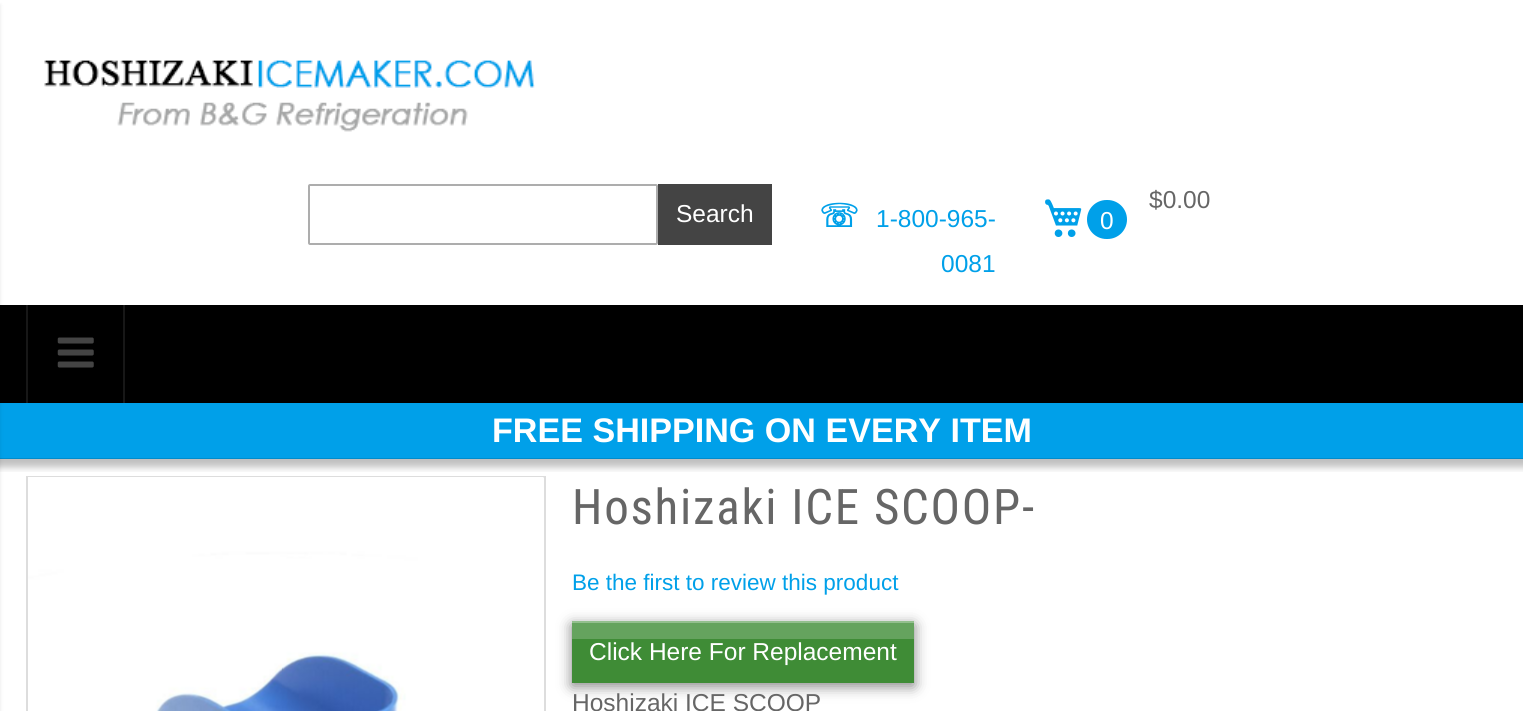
#include <cairo.h>
#include <math.h>
#include <stddef.h>

static cairo_t *ctx;

static void use_color(int r, int g, int b) {
    cairo_set_source_rgb(ctx, r / 255.0, g / 255.0, b / 255.0);
}

static void spaced_text(double x, double y, const char *s, double letter, double word) {
    cairo_move_to(ctx, x, y);
    while (*s) {
        char ch[5] = {0};
        int n = 0;
        do ch[n++] = *s++; while ((*s & 0xC0) == 0x80);
        cairo_show_text(ctx, ch);
        cairo_rel_move_to(ctx, letter + word * (*ch == ' '), 0);
    }
}

static void round_rect(double x, double y, double w, double h, double r) {
    cairo_new_sub_path(ctx);
    cairo_arc(ctx, x + w - r, y + h - r, r, 0, M_PI / 2);
    cairo_arc(ctx, x + r, y + h - r, r, M_PI / 2, M_PI);
    cairo_arc(ctx, x + r, y + r, r, M_PI, 1.5 * M_PI);
    cairo_arc(ctx, x + w - r, y + r, r, 1.5 * M_PI, 2 * M_PI);
    cairo_close_path(ctx);
}

static void shadow(double x, double y, double w, double h, double r, double blur, double alpha) {
    cairo_push_group_with_content(ctx, CAIRO_CONTENT_ALPHA);
    cairo_set_operator(ctx, CAIRO_OPERATOR_SOURCE);
    for (int i = 15; i >= -15 && fmin(w, h) + blur * i / 3 > 0; i -= 2) {
        double e = blur * i / 6;
        cairo_set_source_rgba(ctx, 0, 0, 0, alpha * erfc((i - 1) / 8.5) / 2);
        round_rect(x - e, y - e, w + 2 * e, h + 2 * e, fmax(0, fmin(r + e + blur * .6, fmin(w, h) / 2 + e)));
        cairo_fill(ctx);
    }
    cairo_pattern_t *soft = cairo_pop_group(ctx);
    cairo_mask(ctx, soft);
    cairo_pattern_destroy(soft);
}

static void picture(const char *path, double x, double y, double w, double h) {
    cairo_surface_t *image = cairo_image_surface_create_from_png(path);
    cairo_save(ctx);
    cairo_set_source_surface(ctx, image, x, y);
    cairo_rectangle(ctx, x, y, w, h);
    cairo_fill(ctx);
    cairo_restore(ctx);
    cairo_surface_destroy(image);
}

int main(void) {
    cairo_surface_t *surface = cairo_image_surface_create(CAIRO_FORMAT_RGB24, 1523, 711);
    ctx = cairo_create(surface);
    cairo_font_options_t *options = cairo_font_options_create();
    cairo_font_options_set_hint_metrics(options, CAIRO_HINT_METRICS_OFF);
    cairo_font_options_set_hint_style(options, CAIRO_HINT_STYLE_NONE);
    cairo_set_font_options(ctx, options);
    cairo_set_miter_limit(ctx, 4);
    use_color(255, 255, 255);
    cairo_paint(ctx);
    use_color(0, 0, 0);
    cairo_rectangle(ctx, 0, 305, 1523, 98);
    cairo_fill(ctx);
    use_color(0, 160, 233);
    cairo_rectangle(ctx, 0, 403, 1523, 56);
    cairo_fill(ctx);
    picture("img4.png", 0, 458, 1523, 14);
    use_color(0, 0, 0);
    shadow(-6, 5, 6, 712, 0, 2, 0.1);
    use_color(23, 23, 23);
    cairo_rectangle(ctx, 123, 305, 2, 98);
    cairo_fill(ctx);
    cairo_rectangle(ctx, 26, 305, 2, 98);
    cairo_fill(ctx);
    picture("img1.png", 57, 337, 37, 31);
    picture("img2.png", 44, 60, 491, 72);
    round_rect(309, 185, 348, 59, 1);
    use_color(173, 173, 173);
    cairo_stroke(ctx);
    use_color(68, 68, 68);
    cairo_rectangle(ctx, 658, 184, 114, 61);
    cairo_fill(ctx);
    cairo_select_font_face(ctx, "Liberation Sans", CAIRO_FONT_SLANT_NORMAL, CAIRO_FONT_WEIGHT_NORMAL);
    cairo_set_font_size(ctx, 24.5);
    use_color(255, 255, 255);
    cairo_move_to(ctx, 676, 222);
    cairo_show_text(ctx, "Search");
    cairo_select_font_face(ctx, "DejaVu Sans", CAIRO_FONT_SLANT_NORMAL, CAIRO_FONT_WEIGHT_BOLD);
    cairo_set_font_size(ctx, 32);
    use_color(0, 160, 233);
    cairo_move_to(ctx, 819, 227);
    cairo_show_text(ctx, "☏");
    cairo_select_font_face(ctx, "Liberation Sans", CAIRO_FONT_SLANT_NORMAL, CAIRO_FONT_WEIGHT_NORMAL);
    cairo_set_font_size(ctx, 24.5);
    cairo_move_to(ctx, 876, 227);
    cairo_show_text(ctx, "1-800-965-");
    cairo_move_to(ctx, 941, 272);
    cairo_show_text(ctx, "0081");
    picture("img3.png", 1045, 199, 37, 38);
    use_color(102, 102, 102);
    cairo_move_to(ctx, 1149, 208);
    cairo_show_text(ctx, "$0.00");
    use_color(0, 160, 233);
    round_rect(1085, 198, 44, 43, 21.5);
    cairo_fill_preserve(ctx);
    use_color(255, 255, 255);
    cairo_set_line_width(ctx, 4);
    cairo_stroke(ctx);
    cairo_move_to(ctx, 1100, 229);
    cairo_show_text(ctx, "0");
    cairo_select_font_face(ctx, "Liberation Sans", CAIRO_FONT_SLANT_NORMAL, CAIRO_FONT_WEIGHT_BOLD);
    cairo_set_font_size(ctx, 34.1);
    cairo_move_to(ctx, 492, 442);
    cairo_show_text(ctx, "FREE SHIPPING ON EVERY ITEM");
    cairo_rectangle(ctx, 27, 477, 518, 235);
    use_color(221, 221, 221);
    cairo_set_line_width(ctx, 2);
    cairo_stroke(ctx);
    picture("img5.png", 28, 477, 516, 234);
    cairo_select_font_face(ctx, "Roboto Condensed", CAIRO_FONT_SLANT_NORMAL, CAIRO_FONT_WEIGHT_NORMAL);
    cairo_set_font_size(ctx, 49);
    use_color(102, 102, 102);
    spaced_text(572, 524, "Hoshizaki ICE SCOOP-", 1.75, 0);
    cairo_select_font_face(ctx, "Liberation Sans", CAIRO_FONT_SLANT_NORMAL, CAIRO_FONT_WEIGHT_NORMAL);
    cairo_set_font_size(ctx, 22.5);
    use_color(0, 160, 233);
    cairo_move_to(ctx, 572, 590);
    cairo_show_text(ctx, "Be the first to review this product");
    use_color(0, 0, 0);
    shadow(572, 625, 342, 61, 0, 7, 0.5);
    use_color(63, 140, 54);
    cairo_rectangle(ctx, 572, 639, 342, 44);
    cairo_fill(ctx);
    use_color(101, 163, 94);
    cairo_rectangle(ctx, 572, 623, 342, 16);
    cairo_fill(ctx);
    use_color(147, 191, 142);
    cairo_rectangle(ctx, 572, 621, 342, 2);
    cairo_fill(ctx);
    cairo_set_font_size(ctx, 24.5);
    use_color(255, 255, 255);
    cairo_move_to(ctx, 589, 660);
    cairo_show_text(ctx, "Click Here For Replacement");
    use_color(102, 102, 102);
    cairo_move_to(ctx, 572, 711);
    cairo_show_text(ctx, "Hoshizaki ICE SCOOP");
    cairo_surface_write_to_png(surface, "result.png");
    cairo_font_options_destroy(options);
    cairo_destroy(ctx);
    cairo_surface_destroy(surface);
    return 0;
}
